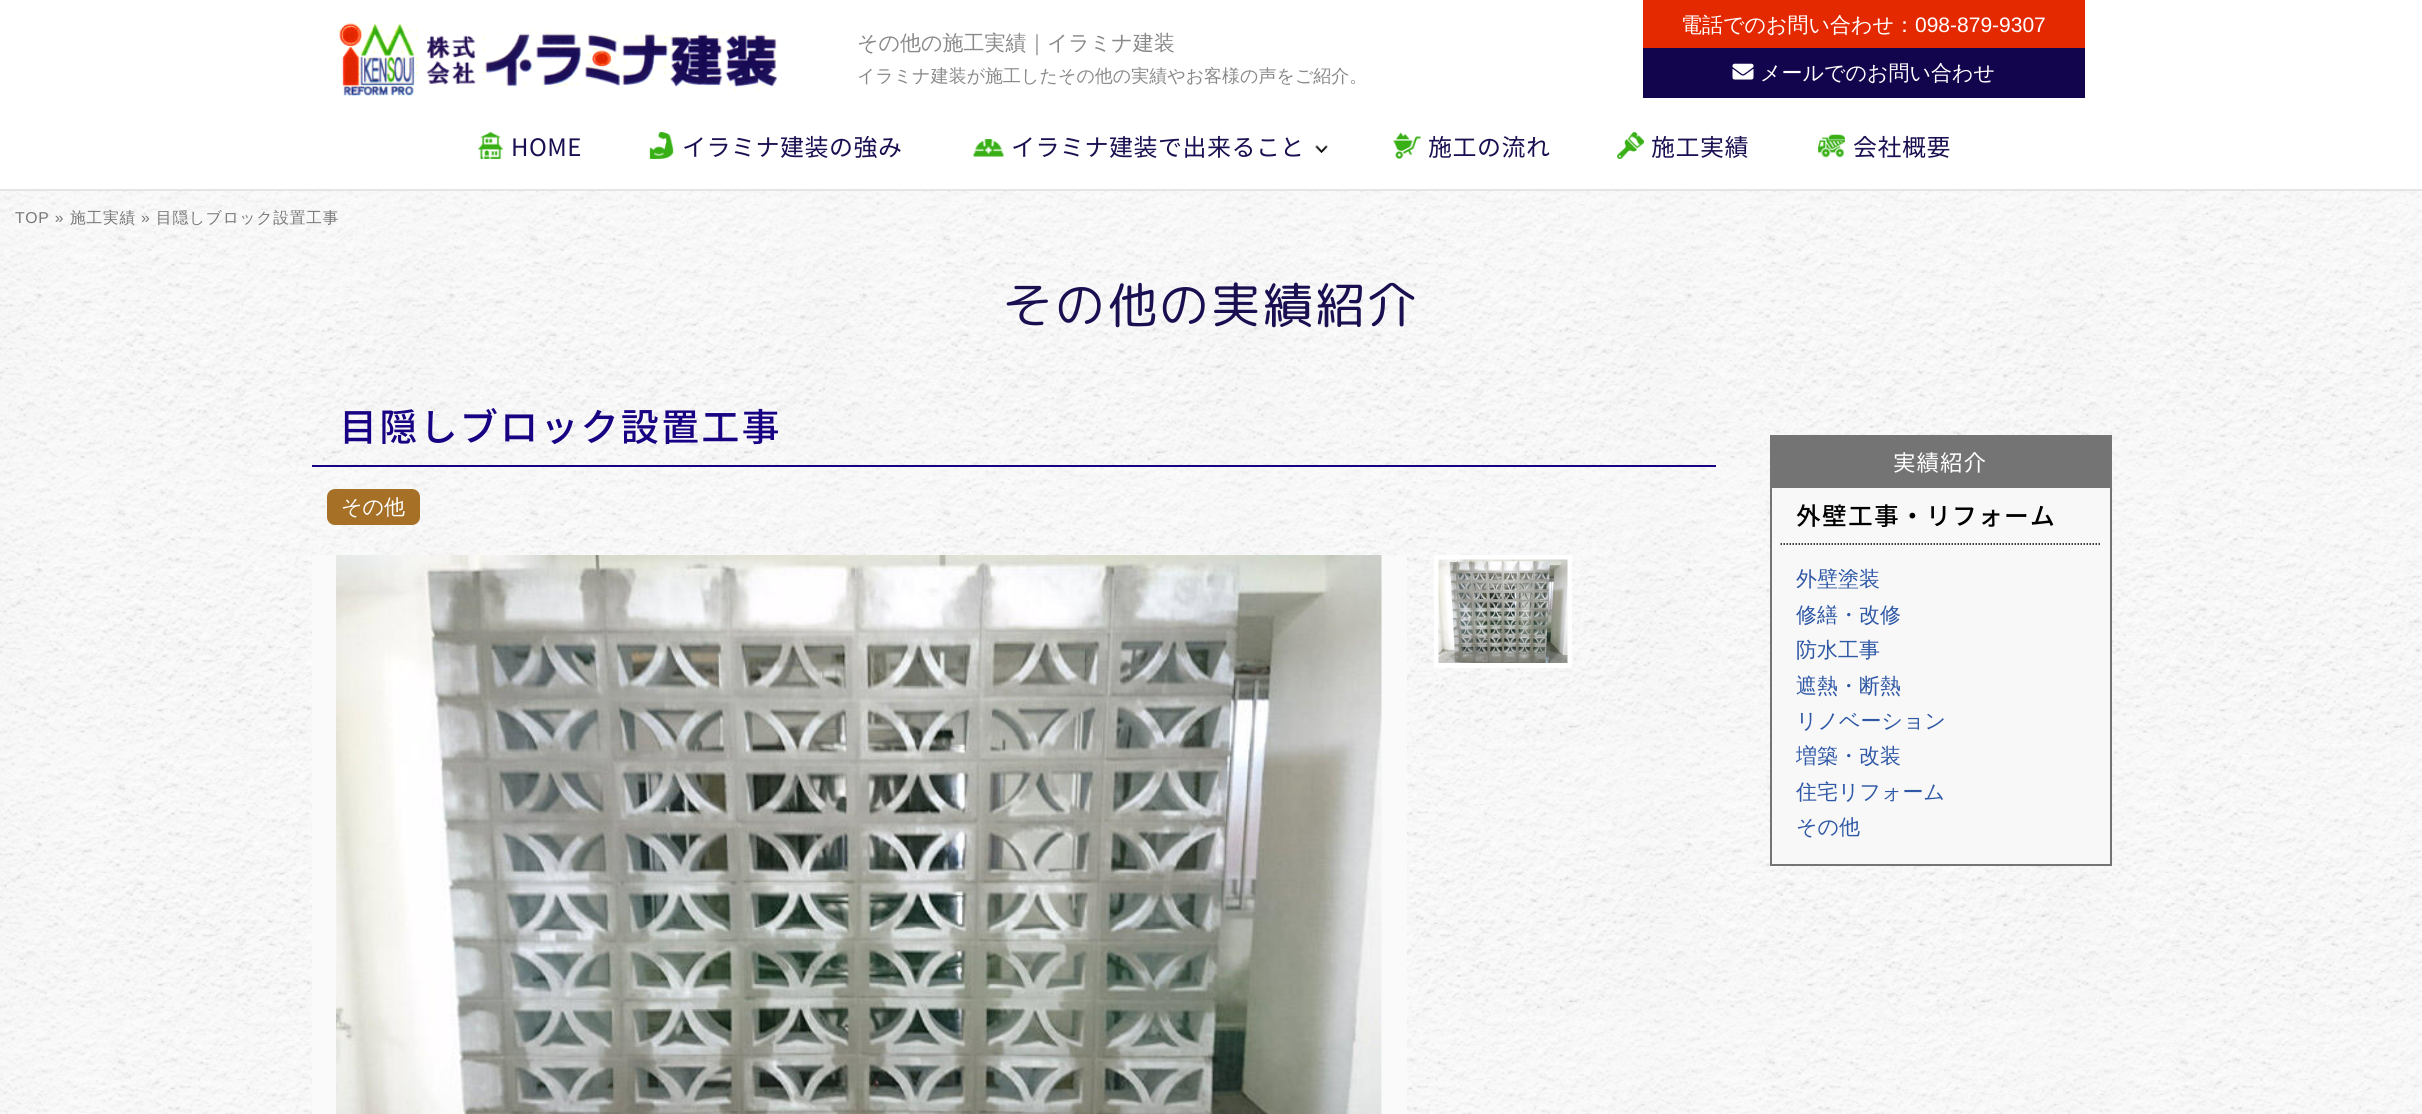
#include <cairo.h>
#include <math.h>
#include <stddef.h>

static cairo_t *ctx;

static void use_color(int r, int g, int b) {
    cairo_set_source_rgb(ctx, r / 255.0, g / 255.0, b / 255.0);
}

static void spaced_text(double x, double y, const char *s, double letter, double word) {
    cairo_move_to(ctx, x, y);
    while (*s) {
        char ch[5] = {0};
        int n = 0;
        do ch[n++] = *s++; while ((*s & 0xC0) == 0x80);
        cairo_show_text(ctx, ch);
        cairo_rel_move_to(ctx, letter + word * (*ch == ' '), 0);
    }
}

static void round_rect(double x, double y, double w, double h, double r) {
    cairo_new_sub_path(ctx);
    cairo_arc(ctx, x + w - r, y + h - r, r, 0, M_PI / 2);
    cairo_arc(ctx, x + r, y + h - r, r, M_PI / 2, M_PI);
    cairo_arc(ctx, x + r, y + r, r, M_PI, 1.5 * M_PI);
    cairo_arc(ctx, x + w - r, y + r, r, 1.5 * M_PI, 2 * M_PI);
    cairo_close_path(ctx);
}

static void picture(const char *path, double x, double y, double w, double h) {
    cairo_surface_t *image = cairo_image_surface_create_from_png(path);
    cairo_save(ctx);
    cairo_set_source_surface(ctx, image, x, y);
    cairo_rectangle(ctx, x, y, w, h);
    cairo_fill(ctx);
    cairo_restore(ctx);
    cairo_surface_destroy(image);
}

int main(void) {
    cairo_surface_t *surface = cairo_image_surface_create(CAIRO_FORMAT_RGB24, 2422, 1114);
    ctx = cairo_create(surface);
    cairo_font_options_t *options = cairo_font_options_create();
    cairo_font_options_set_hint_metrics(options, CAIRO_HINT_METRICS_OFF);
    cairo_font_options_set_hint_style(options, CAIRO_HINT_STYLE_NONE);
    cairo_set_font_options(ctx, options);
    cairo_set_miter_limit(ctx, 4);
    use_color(255, 255, 255);
    cairo_paint(ctx);
    picture("img1.png", 338, 23, 440, 73);
    cairo_select_font_face(ctx, "WenQuanYi Zen Hei Medium", CAIRO_FONT_SLANT_NORMAL, CAIRO_FONT_WEIGHT_NORMAL);
    cairo_set_font_size(ctx, 21);
    use_color(138, 137, 137);
    cairo_move_to(ctx, 857, 50);
    cairo_show_text(ctx, "その他の施工実績｜イラミナ建装");
    cairo_set_font_size(ctx, 18);
    cairo_move_to(ctx, 857, 82);
    cairo_show_text(ctx, "イラミナ建装が施工したその他の実績やお客様の声をご紹介。");
    use_color(228, 41, 1);
    cairo_rectangle(ctx, 1643, 0, 442, 48);
    cairo_fill(ctx);
    cairo_set_font_size(ctx, 21);
    use_color(255, 255, 255);
    cairo_move_to(ctx, 1681, 32);
    cairo_show_text(ctx, "電話でのお問い合わせ：");
    cairo_select_font_face(ctx, "Liberation Sans", CAIRO_FONT_SLANT_NORMAL, CAIRO_FONT_WEIGHT_NORMAL);
    cairo_move_to(ctx, 1915, 32);
    cairo_show_text(ctx, "098-879-9307");
    use_color(18, 4, 77);
    cairo_rectangle(ctx, 1643, 48, 442, 50);
    cairo_fill(ctx);
    picture("img2.png", 1732, 63, 22, 17);
    cairo_select_font_face(ctx, "WenQuanYi Zen Hei Medium", CAIRO_FONT_SLANT_NORMAL, CAIRO_FONT_WEIGHT_NORMAL);
    use_color(255, 255, 255);
    cairo_move_to(ctx, 1760, 80);
    cairo_show_text(ctx, "メールでのお問い合わせ");
    use_color(229, 229, 229);
    cairo_rectangle(ctx, 0, 189, 2422, 2);
    cairo_fill(ctx);
    picture("img3.png", 478, 132, 25, 27);
    cairo_select_font_face(ctx, "Noto Sans JP", CAIRO_FONT_SLANT_NORMAL, CAIRO_FONT_WEIGHT_NORMAL);
    cairo_set_font_size(ctx, 24);
    use_color(25, 15, 81);
    spaced_text(511, 156, "HOME", 0.5, 0);
    picture("img4.png", 649, 132, 25, 27);
    spaced_text(682, 156, "イラミナ建装の強み", 0.5, 0);
    picture("img5.png", 973, 139, 31, 18);
    spaced_text(1011, 156, "イラミナ建装で出来ること", 0.5, 0);
    picture("img6.png", 1315, 145, 13, 8);
    picture("img7.png", 1393, 132, 28, 27);
    spaced_text(1428, 156, "施工の流れ", 0.5, 0);
    picture("img8.png", 1617, 132, 27, 27);
    spaced_text(1651, 156, "施工実績", 0.5, 0);
    picture("img9.png", 1818, 134, 27, 24);
    spaced_text(1853, 156, "会社概要", 0.5, 0);
    picture("img10.png", 0, 191, 2422, 923);
    cairo_select_font_face(ctx, "Liberation Sans", CAIRO_FONT_SLANT_NORMAL, CAIRO_FONT_WEIGHT_NORMAL);
    cairo_set_font_size(ctx, 15.75);
    use_color(120, 119, 119);
    spaced_text(15, 223, "TOP »", 0.75, 0);
    cairo_select_font_face(ctx, "WenQuanYi Zen Hei Medium", CAIRO_FONT_SLANT_NORMAL, CAIRO_FONT_WEIGHT_NORMAL);
    spaced_text(70, 223, "施工実績", 0.75, 0);
    cairo_select_font_face(ctx, "Liberation Sans", CAIRO_FONT_SLANT_NORMAL, CAIRO_FONT_WEIGHT_NORMAL);
    spaced_text(141, 223, "»", 0.75, 0);
    cairo_select_font_face(ctx, "WenQuanYi Zen Hei Medium", CAIRO_FONT_SLANT_NORMAL, CAIRO_FONT_WEIGHT_NORMAL);
    spaced_text(156, 223, "目隠しブロック設置工事", 0.75, 0);
    cairo_select_font_face(ctx, "Rounded Mplus 1c", CAIRO_FONT_SLANT_NORMAL, CAIRO_FONT_WEIGHT_NORMAL);
    cairo_set_font_size(ctx, 49.5);
    use_color(25, 15, 81);
    spaced_text(1003, 323, "その他の実績紹介", 2.5, 0);
    use_color(25, 1, 131);
    cairo_rectangle(ctx, 312, 465, 1404, 2);
    cairo_fill(ctx);
    cairo_select_font_face(ctx, "Noto Sans JP Medium", CAIRO_FONT_SLANT_NORMAL, CAIRO_FONT_WEIGHT_NORMAL);
    cairo_set_font_size(ctx, 38.25);
    spaced_text(339, 441, "目隠しブロック設置工事", 2, 0);
    use_color(166, 113, 38);
    round_rect(327, 489, 93, 36, 8);
    cairo_fill(ctx);
    cairo_select_font_face(ctx, "WenQuanYi Zen Hei Medium", CAIRO_FONT_SLANT_NORMAL, CAIRO_FONT_WEIGHT_NORMAL);
    cairo_set_font_size(ctx, 21);
    use_color(255, 255, 255);
    cairo_move_to(ctx, 341, 514);
    cairo_show_text(ctx, "その他");
    use_color(251, 250, 250);
    cairo_rectangle(ctx, 312, 555, 1095, 559);
    cairo_fill(ctx);
    picture("img11.png", 336, 555, 1046, 559);
    cairo_rectangle(ctx, 1436.5, 557.5, 133, 108);
    use_color(255, 255, 255);
    cairo_set_line_width(ctx, 5);
    cairo_stroke(ctx);
    picture("img12.png", 1438, 559, 130, 104);
    use_color(248, 248, 248);
    cairo_rectangle(ctx, 1772, 488, 338, 376);
    cairo_fill(ctx);
    cairo_rectangle(ctx, 1771, 436, 340, 429);
    use_color(116, 116, 116);
    cairo_set_line_width(ctx, 2);
    cairo_stroke(ctx);
    cairo_rectangle(ctx, 1772, 437, 338, 51);
    cairo_fill(ctx);
    cairo_select_font_face(ctx, "Noto Sans JP", CAIRO_FONT_SLANT_NORMAL, CAIRO_FONT_WEIGHT_NORMAL);
    cairo_set_font_size(ctx, 22.5);
    use_color(255, 255, 255);
    spaced_text(1893, 471, "実績紹介", 1, 0);
    cairo_new_path(ctx);
    cairo_move_to(ctx, 1780.5, 544);
    cairo_line_to(ctx, 2100, 544);
    use_color(0, 0, 0);
    cairo_set_line_width(ctx, 1.5);
    cairo_set_dash(ctx, (double[]){1.5, 1.5}, 2, 0);
    cairo_stroke(ctx);
    cairo_select_font_face(ctx, "Noto Sans JP Medium", CAIRO_FONT_SLANT_NORMAL, CAIRO_FONT_WEIGHT_NORMAL);
    cairo_set_font_size(ctx, 24.75);
    spaced_text(1796, 525, "外壁工事・リフォーム", 1.25, 0);
    cairo_select_font_face(ctx, "WenQuanYi Zen Hei Medium", CAIRO_FONT_SLANT_NORMAL, CAIRO_FONT_WEIGHT_NORMAL);
    cairo_set_font_size(ctx, 21);
    use_color(46, 87, 165);
    cairo_move_to(ctx, 1796, 586);
    cairo_show_text(ctx, "外壁塗装");
    cairo_move_to(ctx, 1796, 622);
    cairo_show_text(ctx, "修繕・改修");
    cairo_move_to(ctx, 1796, 657);
    cairo_show_text(ctx, "防水工事");
    cairo_move_to(ctx, 1796, 693);
    cairo_show_text(ctx, "遮熱・断熱");
    cairo_move_to(ctx, 1796, 728);
    cairo_show_text(ctx, "リノベーション");
    cairo_move_to(ctx, 1796, 763);
    cairo_show_text(ctx, "増築・改装");
    cairo_move_to(ctx, 1796, 799);
    cairo_show_text(ctx, "住宅リフォーム");
    cairo_move_to(ctx, 1796, 834);
    cairo_show_text(ctx, "その他");
    cairo_surface_write_to_png(surface, "result.png");
    cairo_font_options_destroy(options);
    cairo_destroy(ctx);
    cairo_surface_destroy(surface);
    return 0;
}
